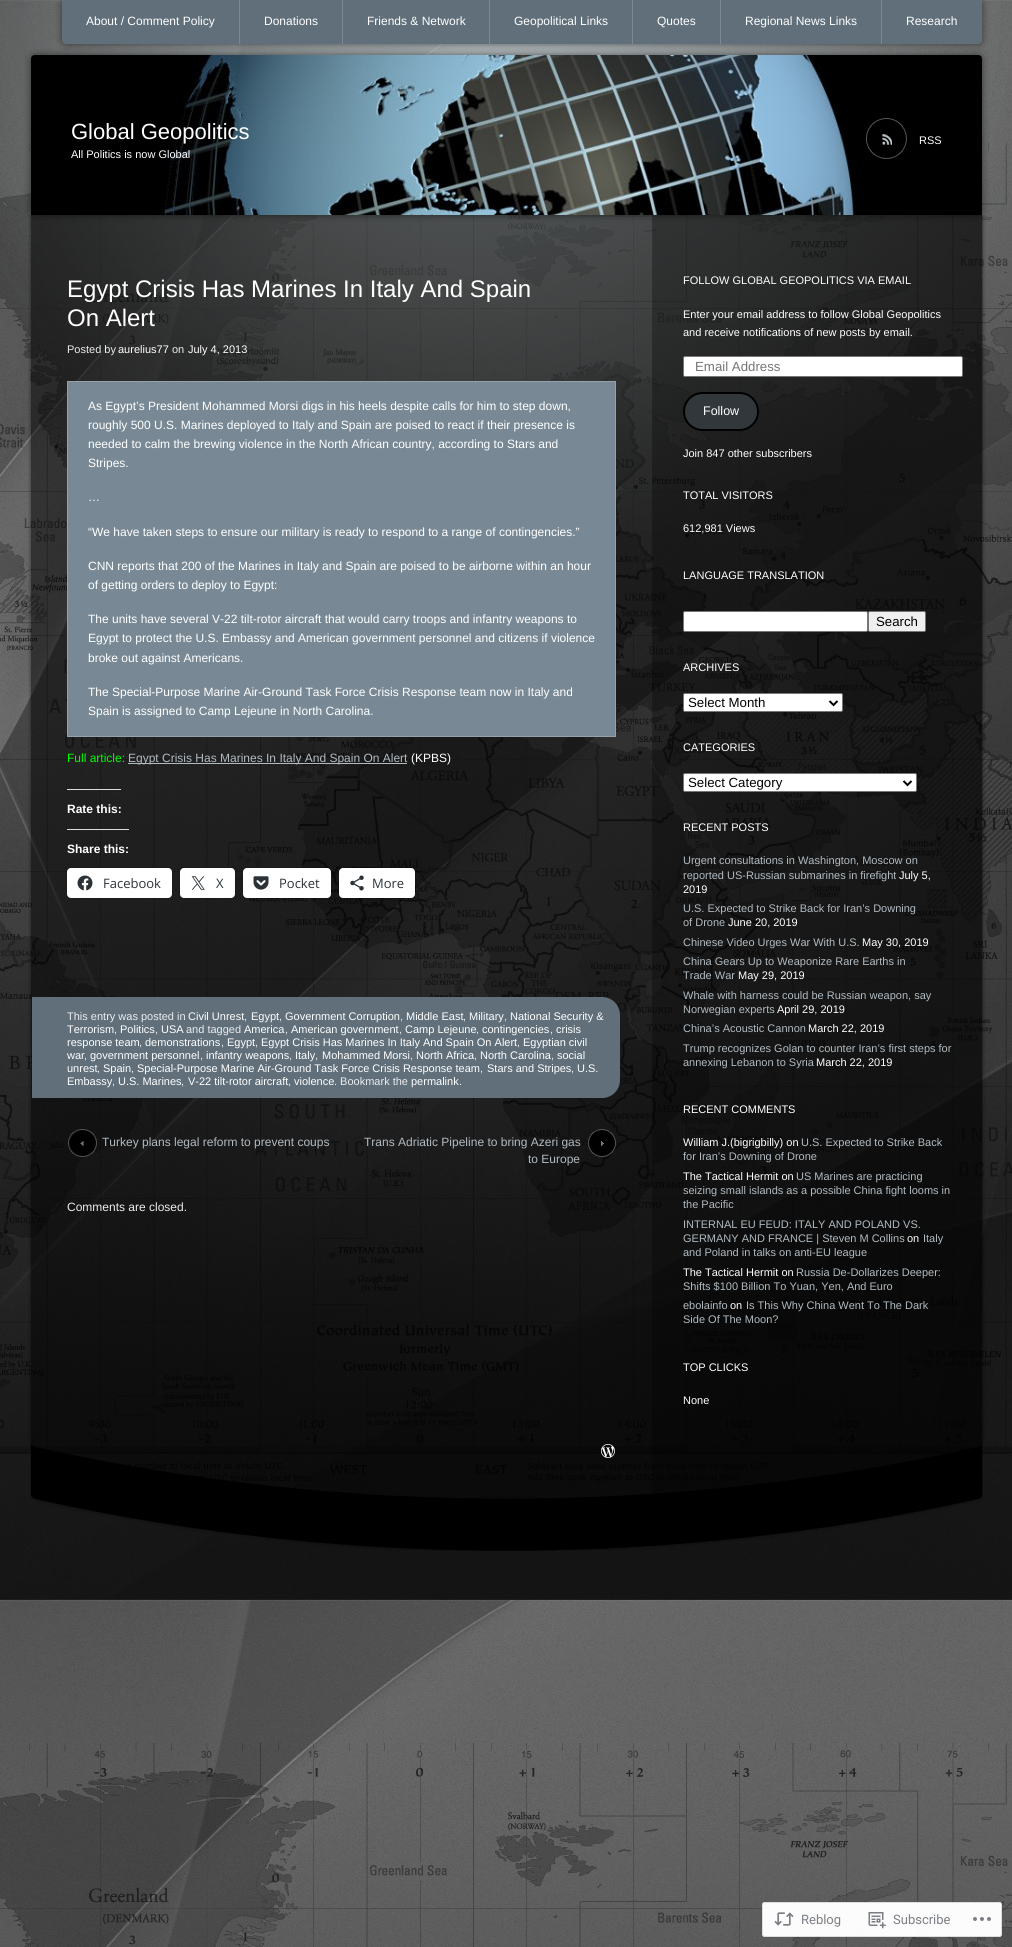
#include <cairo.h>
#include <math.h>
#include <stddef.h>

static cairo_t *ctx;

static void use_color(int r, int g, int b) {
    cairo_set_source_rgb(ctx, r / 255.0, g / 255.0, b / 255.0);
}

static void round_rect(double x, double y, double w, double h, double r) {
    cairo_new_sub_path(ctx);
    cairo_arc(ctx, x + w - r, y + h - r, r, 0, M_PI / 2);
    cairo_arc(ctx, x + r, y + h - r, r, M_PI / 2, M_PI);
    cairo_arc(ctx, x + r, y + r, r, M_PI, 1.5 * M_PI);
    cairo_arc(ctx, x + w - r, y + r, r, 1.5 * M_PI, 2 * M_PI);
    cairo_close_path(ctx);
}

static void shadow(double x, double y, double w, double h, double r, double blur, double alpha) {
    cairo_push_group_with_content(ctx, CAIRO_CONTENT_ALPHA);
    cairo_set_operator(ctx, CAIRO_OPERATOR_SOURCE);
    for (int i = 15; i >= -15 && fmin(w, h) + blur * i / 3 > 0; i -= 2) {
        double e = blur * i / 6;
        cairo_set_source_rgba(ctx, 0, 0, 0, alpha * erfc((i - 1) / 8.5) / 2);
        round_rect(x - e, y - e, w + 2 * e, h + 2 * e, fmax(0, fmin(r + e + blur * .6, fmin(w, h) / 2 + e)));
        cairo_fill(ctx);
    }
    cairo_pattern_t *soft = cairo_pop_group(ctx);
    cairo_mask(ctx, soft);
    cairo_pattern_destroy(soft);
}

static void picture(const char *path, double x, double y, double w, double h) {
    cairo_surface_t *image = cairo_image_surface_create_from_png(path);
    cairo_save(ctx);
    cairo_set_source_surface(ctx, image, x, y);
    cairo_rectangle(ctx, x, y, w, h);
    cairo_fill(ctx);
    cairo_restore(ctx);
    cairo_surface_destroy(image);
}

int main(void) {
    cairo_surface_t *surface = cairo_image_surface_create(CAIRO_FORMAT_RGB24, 1012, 1947);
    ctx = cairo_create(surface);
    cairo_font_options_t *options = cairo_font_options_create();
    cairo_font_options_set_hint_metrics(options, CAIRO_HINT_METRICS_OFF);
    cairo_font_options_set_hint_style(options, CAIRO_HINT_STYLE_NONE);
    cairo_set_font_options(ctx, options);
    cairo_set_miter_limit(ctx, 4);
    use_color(255, 255, 255);
    cairo_paint(ctx);
    picture("img1.png", 0, 0, 1012, 1947);
    picture("img2.png", 0, 0, 1012, 530);
    use_color(0, 0, 0);
    shadow(62, 0, 920, 44, 4, 4, 0.5);
    use_color(96, 111, 122);
    cairo_new_path(ctx);
    cairo_move_to(ctx, 62, 0);
    cairo_line_to(ctx, 982, 0);
    cairo_line_to(ctx, 982, 40);
    cairo_curve_to(ctx, 982, 42, 980, 44, 978, 44);
    cairo_line_to(ctx, 66, 44);
    cairo_curve_to(ctx, 64, 44, 62, 42, 62, 40);
    cairo_close_path(ctx);
    cairo_fill(ctx);
    cairo_select_font_face(ctx, "Liberation Sans", CAIRO_FONT_SLANT_NORMAL, CAIRO_FONT_WEIGHT_NORMAL);
    cairo_set_font_size(ctx, 12);
    use_color(255, 255, 255);
    cairo_move_to(ctx, 86, 25);
    cairo_show_text(ctx, "About / Comment Policy");
    use_color(120, 137, 149);
    cairo_rectangle(ctx, 239, 0, 1, 44);
    cairo_fill(ctx);
    use_color(255, 255, 255);
    cairo_move_to(ctx, 264, 25);
    cairo_show_text(ctx, "Donations");
    use_color(120, 137, 149);
    cairo_rectangle(ctx, 342, 0, 1, 44);
    cairo_fill(ctx);
    use_color(255, 255, 255);
    cairo_move_to(ctx, 367, 25);
    cairo_show_text(ctx, "Friends & Network");
    use_color(120, 137, 149);
    cairo_rectangle(ctx, 489, 0, 1, 44);
    cairo_fill(ctx);
    use_color(255, 255, 255);
    cairo_move_to(ctx, 514, 25);
    cairo_show_text(ctx, "Geopolitical Links");
    use_color(120, 137, 149);
    cairo_rectangle(ctx, 632, 0, 1, 44);
    cairo_fill(ctx);
    use_color(255, 255, 255);
    cairo_move_to(ctx, 657, 25);
    cairo_show_text(ctx, "Quotes");
    use_color(120, 137, 149);
    cairo_rectangle(ctx, 720, 0, 1, 44);
    cairo_fill(ctx);
    use_color(255, 255, 255);
    cairo_move_to(ctx, 745, 25);
    cairo_show_text(ctx, "Regional News Links");
    use_color(120, 137, 149);
    cairo_rectangle(ctx, 881, 0, 1, 44);
    cairo_fill(ctx);
    use_color(255, 255, 255);
    cairo_move_to(ctx, 906, 25);
    cairo_show_text(ctx, "Research");
    picture("img5.png", 28, 215, 958, 1227);
    use_color(0, 0, 0);
    shadow(31, 55, 951, 160, 4, 4, 0.5);
    picture("img3.png", 31, 55, 951, 160);
    cairo_set_font_size(ctx, 22);
    use_color(255, 255, 255);
    cairo_move_to(ctx, 71, 139);
    cairo_show_text(ctx, "Global Geopolitics");
    cairo_set_font_size(ctx, 11);
    cairo_move_to(ctx, 71, 158);
    cairo_show_text(ctx, "All Politics is now Global");
    picture("img4.png", 866, 118, 41, 41);
    cairo_move_to(ctx, 919, 144);
    cairo_show_text(ctx, "RSS");
    cairo_set_font_size(ctx, 24);
    cairo_move_to(ctx, 67, 297);
    cairo_show_text(ctx, "Egypt Crisis Has Marines In Italy And Spain");
    cairo_move_to(ctx, 67, 326);
    cairo_show_text(ctx, "On Alert");
    cairo_set_font_size(ctx, 11);
    use_color(235, 237, 239);
    cairo_move_to(ctx, 67, 353);
    cairo_show_text(ctx, "Posted by");
    use_color(255, 255, 255);
    cairo_move_to(ctx, 118, 353);
    cairo_show_text(ctx, "aurelius77");
    use_color(235, 237, 239);
    cairo_move_to(ctx, 172, 353);
    cairo_show_text(ctx, "on");
    use_color(255, 255, 255);
    cairo_move_to(ctx, 188, 353);
    cairo_show_text(ctx, "July 4, 2013");
    use_color(120, 137, 149);
    cairo_rectangle(ctx, 67.5, 381.5, 548, 355);
    cairo_fill_preserve(ctx);
    use_color(149, 162, 171);
    cairo_set_line_width(ctx, 1);
    cairo_stroke(ctx);
    cairo_set_font_size(ctx, 12);
    use_color(255, 255, 255);
    cairo_move_to(ctx, 88, 410);
    cairo_show_text(ctx, "As Egypt’s President Mohammed Morsi digs in his heels despite calls for him to step down,");
    cairo_move_to(ctx, 88, 429);
    cairo_show_text(ctx, "roughly 500 U.S. Marines deployed to Italy and Spain are poised to react if their presence is");
    cairo_move_to(ctx, 88, 448);
    cairo_show_text(ctx, "needed to calm the brewing violence in the North African country, according to Stars and");
    cairo_move_to(ctx, 88, 467);
    cairo_show_text(ctx, "Stripes.");
    cairo_move_to(ctx, 88, 501);
    cairo_show_text(ctx, "…");
    cairo_move_to(ctx, 88, 536);
    cairo_show_text(ctx, "“We have taken steps to ensure our military is ready to respond to a range of contingencies.”");
    cairo_move_to(ctx, 88, 570);
    cairo_show_text(ctx, "CNN reports that 200 of the Marines in Italy and Spain are poised to be airborne within an hour");
    cairo_move_to(ctx, 88, 589);
    cairo_show_text(ctx, "of getting orders to deploy to Egypt:");
    cairo_move_to(ctx, 88, 623);
    cairo_show_text(ctx, "The units have several V-22 tilt-rotor aircraft that would carry troops and infantry weapons to");
    cairo_move_to(ctx, 88, 642);
    cairo_show_text(ctx, "Egypt to protect the U.S. Embassy and American government personnel and citizens if violence");
    cairo_move_to(ctx, 88, 662);
    cairo_show_text(ctx, "broke out against Americans.");
    cairo_move_to(ctx, 88, 696);
    cairo_show_text(ctx, "The Special-Purpose Marine Air-Ground Task Force Crisis Response team now in Italy and");
    cairo_move_to(ctx, 88, 715);
    cairo_show_text(ctx, "Spain is assigned to Camp Lejeune in North Carolina.");
    use_color(0, 255, 0);
    cairo_move_to(ctx, 67, 762);
    cairo_show_text(ctx, "Full article:");
    use_color(177, 187, 194);
    cairo_rectangle(ctx, 128, 763, 279, 1);
    cairo_fill(ctx);
    cairo_move_to(ctx, 128, 762);
    cairo_show_text(ctx, "Egypt Crisis Has Marines In Italy And Spain On Alert");
    use_color(255, 255, 255);
    cairo_move_to(ctx, 411, 762);
    cairo_show_text(ctx, "(KPBS)");
    use_color(220, 220, 222);
    cairo_rectangle(ctx, 67, 789, 54, 1);
    cairo_fill(ctx);
    cairo_select_font_face(ctx, "Liberation Sans", CAIRO_FONT_SLANT_NORMAL, CAIRO_FONT_WEIGHT_BOLD);
    use_color(255, 255, 255);
    cairo_move_to(ctx, 67, 813);
    cairo_show_text(ctx, "Rate this:");
    use_color(220, 220, 222);
    cairo_rectangle(ctx, 67, 829, 62, 1);
    cairo_fill(ctx);
    use_color(255, 255, 255);
    cairo_move_to(ctx, 67, 853);
    cairo_show_text(ctx, "Share this:");
    round_rect(66.5, 867.5, 106, 31, 4.5);
    cairo_set_source_rgba(ctx, 0, 0, 0, 0.12);
    cairo_stroke(ctx);
    use_color(255, 255, 255);
    round_rect(67, 868, 105, 30, 4);
    cairo_fill(ctx);
    picture("img6.png", 77, 875, 16, 16);
    cairo_select_font_face(ctx, "Open Sans", CAIRO_FONT_SLANT_NORMAL, CAIRO_FONT_WEIGHT_NORMAL);
    cairo_set_font_size(ctx, 13);
    use_color(44, 51, 56);
    cairo_move_to(ctx, 103, 888);
    cairo_show_text(ctx, "Facebook");
    round_rect(179.5, 867.5, 56, 31, 4.5);
    cairo_set_source_rgba(ctx, 0, 0, 0, 0.12);
    cairo_stroke(ctx);
    use_color(255, 255, 255);
    round_rect(180, 868, 55, 30, 4);
    cairo_fill(ctx);
    picture("img7.png", 191, 876, 14, 14);
    use_color(44, 51, 56);
    cairo_move_to(ctx, 216, 888);
    cairo_show_text(ctx, "X");
    round_rect(242.5, 867.5, 89, 31, 4.5);
    cairo_set_source_rgba(ctx, 0, 0, 0, 0.12);
    cairo_stroke(ctx);
    use_color(255, 255, 255);
    round_rect(243, 868, 88, 30, 4);
    cairo_fill(ctx);
    picture("img8.png", 253, 876, 16, 14);
    use_color(44, 51, 56);
    cairo_move_to(ctx, 279, 888);
    cairo_show_text(ctx, "Pocket");
    round_rect(338.5, 867.5, 77, 31, 4.5);
    cairo_set_source_rgba(ctx, 0, 0, 0, 0.12);
    cairo_stroke(ctx);
    use_color(255, 255, 255);
    round_rect(339, 868, 76, 30, 4);
    cairo_fill(ctx);
    picture("img9.png", 350, 875, 14, 16);
    use_color(44, 51, 56);
    cairo_move_to(ctx, 372, 888);
    cairo_show_text(ctx, "More");
    use_color(96, 111, 122);
    cairo_new_path(ctx);
    cairo_move_to(ctx, 32, 997);
    cairo_line_to(ctx, 602, 997);
    cairo_curve_to(ctx, 612, 997, 620, 1005, 620, 1015);
    cairo_line_to(ctx, 620, 1080);
    cairo_curve_to(ctx, 620, 1090, 612, 1098, 602, 1098);
    cairo_line_to(ctx, 32, 1098);
    cairo_close_path(ctx);
    cairo_fill(ctx);
    cairo_select_font_face(ctx, "Liberation Sans", CAIRO_FONT_SLANT_NORMAL, CAIRO_FONT_WEIGHT_NORMAL);
    cairo_set_font_size(ctx, 11);
    use_color(235, 237, 239);
    cairo_move_to(ctx, 67, 1020);
    cairo_show_text(ctx, "This entry was posted in");
    use_color(255, 255, 255);
    cairo_move_to(ctx, 188, 1020);
    cairo_show_text(ctx, "Civil Unrest");
    use_color(235, 237, 239);
    cairo_move_to(ctx, 244, 1020);
    cairo_show_text(ctx, ",");
    use_color(255, 255, 255);
    cairo_move_to(ctx, 251, 1020);
    cairo_show_text(ctx, "Egypt");
    use_color(235, 237, 239);
    cairo_move_to(ctx, 279, 1020);
    cairo_show_text(ctx, ",");
    use_color(255, 255, 255);
    cairo_move_to(ctx, 285, 1020);
    cairo_show_text(ctx, "Government Corruption");
    use_color(235, 237, 239);
    cairo_move_to(ctx, 400, 1020);
    cairo_show_text(ctx, ",");
    use_color(255, 255, 255);
    cairo_move_to(ctx, 406, 1020);
    cairo_show_text(ctx, "Middle East");
    use_color(235, 237, 239);
    cairo_move_to(ctx, 463, 1020);
    cairo_show_text(ctx, ",");
    use_color(255, 255, 255);
    cairo_move_to(ctx, 469, 1020);
    cairo_show_text(ctx, "Military");
    use_color(235, 237, 239);
    cairo_move_to(ctx, 504, 1020);
    cairo_show_text(ctx, ",");
    use_color(255, 255, 255);
    cairo_move_to(ctx, 510, 1020);
    cairo_show_text(ctx, "National Security &");
    cairo_move_to(ctx, 67, 1033);
    cairo_show_text(ctx, "Terrorism");
    use_color(235, 237, 239);
    cairo_move_to(ctx, 114, 1033);
    cairo_show_text(ctx, ",");
    use_color(255, 255, 255);
    cairo_move_to(ctx, 120, 1033);
    cairo_show_text(ctx, "Politics");
    use_color(235, 237, 239);
    cairo_move_to(ctx, 155, 1033);
    cairo_show_text(ctx, ",");
    use_color(255, 255, 255);
    cairo_move_to(ctx, 161, 1033);
    cairo_show_text(ctx, "USA");
    use_color(235, 237, 239);
    cairo_move_to(ctx, 186, 1033);
    cairo_show_text(ctx, "and tagged");
    use_color(255, 255, 255);
    cairo_move_to(ctx, 244, 1033);
    cairo_show_text(ctx, "America");
    use_color(235, 237, 239);
    cairo_move_to(ctx, 285, 1033);
    cairo_show_text(ctx, ",");
    use_color(255, 255, 255);
    cairo_move_to(ctx, 291, 1033);
    cairo_show_text(ctx, "American government");
    use_color(235, 237, 239);
    cairo_move_to(ctx, 399, 1033);
    cairo_show_text(ctx, ",");
    use_color(255, 255, 255);
    cairo_move_to(ctx, 405, 1033);
    cairo_show_text(ctx, "Camp Lejeune");
    use_color(235, 237, 239);
    cairo_move_to(ctx, 476, 1033);
    cairo_show_text(ctx, ",");
    use_color(255, 255, 255);
    cairo_move_to(ctx, 482, 1033);
    cairo_show_text(ctx, "contingencies");
    use_color(235, 237, 239);
    cairo_move_to(ctx, 550, 1033);
    cairo_show_text(ctx, ",");
    use_color(255, 255, 255);
    cairo_move_to(ctx, 556, 1033);
    cairo_show_text(ctx, "crisis");
    cairo_move_to(ctx, 67, 1046);
    cairo_show_text(ctx, "response team");
    use_color(235, 237, 239);
    cairo_move_to(ctx, 139, 1046);
    cairo_show_text(ctx, ",");
    use_color(255, 255, 255);
    cairo_move_to(ctx, 145, 1046);
    cairo_show_text(ctx, "demonstrations");
    use_color(235, 237, 239);
    cairo_move_to(ctx, 221, 1046);
    cairo_show_text(ctx, ",");
    use_color(255, 255, 255);
    cairo_move_to(ctx, 227, 1046);
    cairo_show_text(ctx, "Egypt");
    use_color(235, 237, 239);
    cairo_move_to(ctx, 255, 1046);
    cairo_show_text(ctx, ",");
    use_color(255, 255, 255);
    cairo_move_to(ctx, 261, 1046);
    cairo_show_text(ctx, "Egypt Crisis Has Marines In Italy And Spain On Alert");
    use_color(235, 237, 239);
    cairo_move_to(ctx, 517, 1046);
    cairo_show_text(ctx, ",");
    use_color(255, 255, 255);
    cairo_move_to(ctx, 523, 1046);
    cairo_show_text(ctx, "Egyptian civil");
    cairo_move_to(ctx, 67, 1059);
    cairo_show_text(ctx, "war");
    use_color(235, 237, 239);
    cairo_move_to(ctx, 84, 1059);
    cairo_show_text(ctx, ",");
    use_color(255, 255, 255);
    cairo_move_to(ctx, 90, 1059);
    cairo_show_text(ctx, "government personnel");
    use_color(235, 237, 239);
    cairo_move_to(ctx, 200, 1059);
    cairo_show_text(ctx, ",");
    use_color(255, 255, 255);
    cairo_move_to(ctx, 206, 1059);
    cairo_show_text(ctx, "infantry weapons");
    use_color(235, 237, 239);
    cairo_move_to(ctx, 289, 1059);
    cairo_show_text(ctx, ",");
    use_color(255, 255, 255);
    cairo_move_to(ctx, 295, 1059);
    cairo_show_text(ctx, "Italy");
    use_color(235, 237, 239);
    cairo_move_to(ctx, 315, 1059);
    cairo_show_text(ctx, ",");
    use_color(255, 255, 255);
    cairo_move_to(ctx, 322, 1059);
    cairo_show_text(ctx, "Mohammed Morsi");
    use_color(235, 237, 239);
    cairo_move_to(ctx, 410, 1059);
    cairo_show_text(ctx, ",");
    use_color(255, 255, 255);
    cairo_move_to(ctx, 416, 1059);
    cairo_show_text(ctx, "North Africa");
    use_color(235, 237, 239);
    cairo_move_to(ctx, 474, 1059);
    cairo_show_text(ctx, ",");
    use_color(255, 255, 255);
    cairo_move_to(ctx, 480, 1059);
    cairo_show_text(ctx, "North Carolina");
    use_color(235, 237, 239);
    cairo_move_to(ctx, 551, 1059);
    cairo_show_text(ctx, ",");
    use_color(255, 255, 255);
    cairo_move_to(ctx, 557, 1059);
    cairo_show_text(ctx, "social");
    cairo_move_to(ctx, 67, 1072);
    cairo_show_text(ctx, "unrest");
    use_color(235, 237, 239);
    cairo_move_to(ctx, 97, 1072);
    cairo_show_text(ctx, ",");
    use_color(255, 255, 255);
    cairo_move_to(ctx, 103, 1072);
    cairo_show_text(ctx, "Spain");
    use_color(235, 237, 239);
    cairo_move_to(ctx, 131, 1072);
    cairo_show_text(ctx, ",");
    use_color(255, 255, 255);
    cairo_move_to(ctx, 137, 1072);
    cairo_show_text(ctx, "Special-Purpose Marine Air-Ground Task Force Crisis Response team");
    use_color(235, 237, 239);
    cairo_move_to(ctx, 480, 1072);
    cairo_show_text(ctx, ",");
    use_color(255, 255, 255);
    cairo_move_to(ctx, 487, 1072);
    cairo_show_text(ctx, "Stars and Stripes");
    use_color(235, 237, 239);
    cairo_move_to(ctx, 571, 1072);
    cairo_show_text(ctx, ",");
    use_color(255, 255, 255);
    cairo_move_to(ctx, 577, 1072);
    cairo_show_text(ctx, "U.S.");
    cairo_move_to(ctx, 67, 1085);
    cairo_show_text(ctx, "Embassy");
    use_color(235, 237, 239);
    cairo_move_to(ctx, 112, 1085);
    cairo_show_text(ctx, ",");
    use_color(255, 255, 255);
    cairo_move_to(ctx, 118, 1085);
    cairo_show_text(ctx, "U.S. Marines");
    use_color(235, 237, 239);
    cairo_move_to(ctx, 181, 1085);
    cairo_show_text(ctx, ",");
    use_color(255, 255, 255);
    cairo_move_to(ctx, 188, 1085);
    cairo_show_text(ctx, "V-22 tilt-rotor aircraft");
    use_color(235, 237, 239);
    cairo_move_to(ctx, 288, 1085);
    cairo_show_text(ctx, ",");
    use_color(255, 255, 255);
    cairo_move_to(ctx, 294, 1085);
    cairo_show_text(ctx, "violence");
    use_color(235, 237, 239);
    cairo_move_to(ctx, 334, 1085);
    cairo_show_text(ctx, ". Bookmark the");
    use_color(255, 255, 255);
    cairo_move_to(ctx, 411, 1085);
    cairo_show_text(ctx, "permalink");
    use_color(235, 237, 239);
    cairo_move_to(ctx, 459, 1085);
    cairo_show_text(ctx, ".");
    picture("img10.png", 68, 1129, 29, 28);
    cairo_set_font_size(ctx, 12);
    use_color(177, 187, 194);
    cairo_move_to(ctx, 102, 1146);
    cairo_show_text(ctx, "Turkey plans legal reform to prevent coups");
    picture("img11.png", 588, 1129, 28, 28);
    cairo_move_to(ctx, 364, 1146);
    cairo_show_text(ctx, "Trans Adriatic Pipeline to bring Azeri gas");
    cairo_move_to(ctx, 528, 1163);
    cairo_show_text(ctx, "to Europe");
    use_color(235, 237, 239);
    cairo_move_to(ctx, 67, 1211);
    cairo_show_text(ctx, "Comments are closed.");
    cairo_set_font_size(ctx, 11);
    use_color(255, 255, 255);
    cairo_move_to(ctx, 683, 284);
    cairo_show_text(ctx, "FOLLOW GLOBAL GEOPOLITICS VIA EMAIL");
    cairo_move_to(ctx, 683, 318);
    cairo_show_text(ctx, "Enter your email address to follow Global Geopolitics");
    cairo_move_to(ctx, 683, 336);
    cairo_show_text(ctx, "and receive notifications of new posts by email.");
    round_rect(683.5, 356.5, 279, 20, 1.5);
    cairo_fill_preserve(ctx);
    use_color(118, 118, 118);
    cairo_stroke(ctx);
    cairo_set_font_size(ctx, 13.25);
    use_color(117, 117, 117);
    cairo_move_to(ctx, 695, 371);
    cairo_show_text(ctx, "Email Address");
    use_color(50, 55, 60);
    round_rect(684, 393, 74, 37, 18.5);
    cairo_fill_preserve(ctx);
    use_color(0, 0, 0);
    cairo_set_line_width(ctx, 2);
    cairo_stroke(ctx);
    cairo_set_font_size(ctx, 12.5);
    use_color(255, 255, 255);
    cairo_move_to(ctx, 703, 415);
    cairo_show_text(ctx, "Follow");
    cairo_set_font_size(ctx, 11);
    cairo_move_to(ctx, 683, 457);
    cairo_show_text(ctx, "Join 847 other subscribers");
    cairo_move_to(ctx, 683, 499);
    cairo_show_text(ctx, "TOTAL VISITORS");
    cairo_move_to(ctx, 683, 532);
    cairo_show_text(ctx, "612,981 Views");
    cairo_move_to(ctx, 683, 579);
    cairo_show_text(ctx, "LANGUAGE TRANSLATION");
    round_rect(683.5, 611.5, 184, 20, 1.5);
    cairo_fill_preserve(ctx);
    use_color(118, 118, 118);
    cairo_set_line_width(ctx, 1);
    cairo_stroke(ctx);
    use_color(239, 239, 239);
    round_rect(868.5, 611.5, 57, 20, 1.5);
    cairo_fill_preserve(ctx);
    use_color(118, 118, 118);
    cairo_stroke(ctx);
    cairo_set_font_size(ctx, 13.25);
    use_color(0, 0, 0);
    cairo_move_to(ctx, 876, 626);
    cairo_show_text(ctx, "Search");
    cairo_set_font_size(ctx, 11);
    use_color(255, 255, 255);
    cairo_move_to(ctx, 683, 671);
    cairo_show_text(ctx, "ARCHIVES");
    round_rect(683.5, 693.5, 159, 18, 1.5);
    cairo_fill_preserve(ctx);
    use_color(118, 118, 118);
    cairo_stroke(ctx);
    cairo_new_path(ctx);
    cairo_move_to(ctx, 829.5, 701);
    cairo_line_to(ctx, 833.5, 705);
    cairo_line_to(ctx, 837.5, 701);
    use_color(0, 0, 0);
    cairo_set_line_width(ctx, 2);
    cairo_stroke(ctx);
    cairo_set_font_size(ctx, 13.25);
    cairo_move_to(ctx, 688, 707);
    cairo_show_text(ctx, "Select Month");
    cairo_set_font_size(ctx, 11);
    use_color(255, 255, 255);
    cairo_move_to(ctx, 683, 751);
    cairo_show_text(ctx, "CATEGORIES");
    round_rect(683.5, 773.5, 233, 18, 1.5);
    cairo_fill_preserve(ctx);
    use_color(118, 118, 118);
    cairo_set_line_width(ctx, 1);
    cairo_stroke(ctx);
    cairo_new_path(ctx);
    cairo_move_to(ctx, 903.5, 781);
    cairo_line_to(ctx, 907.5, 785);
    cairo_line_to(ctx, 911.5, 781);
    use_color(0, 0, 0);
    cairo_set_line_width(ctx, 2);
    cairo_stroke(ctx);
    cairo_set_font_size(ctx, 13.25);
    cairo_move_to(ctx, 688, 787);
    cairo_show_text(ctx, "Select Category");
    cairo_set_font_size(ctx, 11);
    use_color(255, 255, 255);
    cairo_move_to(ctx, 683, 831);
    cairo_show_text(ctx, "RECENT POSTS");
    use_color(177, 187, 194);
    cairo_move_to(ctx, 683, 864);
    cairo_show_text(ctx, "Urgent consultations in Washington, Moscow on");
    cairo_move_to(ctx, 683, 879);
    cairo_show_text(ctx, "reported US-Russian submarines in firefight");
    use_color(255, 255, 255);
    cairo_move_to(ctx, 899, 879);
    cairo_show_text(ctx, "July 5,");
    cairo_move_to(ctx, 683, 893);
    cairo_show_text(ctx, "2019");
    use_color(177, 187, 194);
    cairo_move_to(ctx, 683, 912);
    cairo_show_text(ctx, "U.S. Expected to Strike Back for Iran’s Downing");
    cairo_move_to(ctx, 683, 926);
    cairo_show_text(ctx, "of Drone");
    use_color(255, 255, 255);
    cairo_move_to(ctx, 728, 926);
    cairo_show_text(ctx, "June 20, 2019");
    use_color(177, 187, 194);
    cairo_move_to(ctx, 683, 946);
    cairo_show_text(ctx, "Chinese Video Urges War With U.S.");
    use_color(255, 255, 255);
    cairo_move_to(ctx, 862, 946);
    cairo_show_text(ctx, "May 30, 2019");
    use_color(177, 187, 194);
    cairo_move_to(ctx, 683, 965);
    cairo_show_text(ctx, "China Gears Up to Weaponize Rare Earths in");
    cairo_move_to(ctx, 683, 979);
    cairo_show_text(ctx, "Trade War");
    use_color(255, 255, 255);
    cairo_move_to(ctx, 738, 979);
    cairo_show_text(ctx, "May 29, 2019");
    use_color(177, 187, 194);
    cairo_move_to(ctx, 683, 999);
    cairo_show_text(ctx, "Whale with harness could be Russian weapon, say");
    cairo_move_to(ctx, 683, 1013);
    cairo_show_text(ctx, "Norwegian experts");
    use_color(255, 255, 255);
    cairo_move_to(ctx, 777, 1013);
    cairo_show_text(ctx, "April 29, 2019");
    use_color(177, 187, 194);
    cairo_move_to(ctx, 683, 1032);
    cairo_show_text(ctx, "China’s Acoustic Cannon");
    use_color(255, 255, 255);
    cairo_move_to(ctx, 808, 1032);
    cairo_show_text(ctx, "March 22, 2019");
    use_color(177, 187, 194);
    cairo_move_to(ctx, 683, 1052);
    cairo_show_text(ctx, "Trump recognizes Golan to counter Iran’s first steps for");
    cairo_move_to(ctx, 683, 1066);
    cairo_show_text(ctx, "annexing Lebanon to Syria");
    use_color(255, 255, 255);
    cairo_move_to(ctx, 816, 1066);
    cairo_show_text(ctx, "March 22, 2019");
    cairo_move_to(ctx, 683, 1113);
    cairo_show_text(ctx, "RECENT COMMENTS");
    cairo_move_to(ctx, 683, 1146);
    cairo_show_text(ctx, "William J.(bigrigbilly) on");
    use_color(177, 187, 194);
    cairo_move_to(ctx, 801, 1146);
    cairo_show_text(ctx, "U.S. Expected to Strike Back");
    cairo_move_to(ctx, 683, 1160);
    cairo_show_text(ctx, "for Iran’s Downing of Drone");
    use_color(255, 255, 255);
    cairo_move_to(ctx, 683, 1180);
    cairo_show_text(ctx, "The Tactical Hermit on");
    use_color(177, 187, 194);
    cairo_move_to(ctx, 796, 1180);
    cairo_show_text(ctx, "US Marines are practicing");
    cairo_move_to(ctx, 683, 1194);
    cairo_show_text(ctx, "seizing small islands as a possible China fight looms in");
    cairo_move_to(ctx, 683, 1208);
    cairo_show_text(ctx, "the Pacific");
    cairo_move_to(ctx, 683, 1228);
    cairo_show_text(ctx, "INTERNAL EU FEUD: ITALY AND POLAND VS.");
    cairo_move_to(ctx, 683, 1242);
    cairo_show_text(ctx, "GERMANY AND FRANCE | Steven M Collins");
    use_color(255, 255, 255);
    cairo_move_to(ctx, 907, 1242);
    cairo_show_text(ctx, "on");
    use_color(177, 187, 194);
    cairo_move_to(ctx, 923, 1242);
    cairo_show_text(ctx, "Italy");
    cairo_move_to(ctx, 683, 1256);
    cairo_show_text(ctx, "and Poland in talks on anti-EU league");
    use_color(255, 255, 255);
    cairo_move_to(ctx, 683, 1276);
    cairo_show_text(ctx, "The Tactical Hermit on");
    use_color(177, 187, 194);
    cairo_move_to(ctx, 796, 1276);
    cairo_show_text(ctx, "Russia De-Dollarizes Deeper:");
    cairo_move_to(ctx, 683, 1290);
    cairo_show_text(ctx, "Shifts $100 Billion To Yuan, Yen, And Euro");
    cairo_move_to(ctx, 683, 1309);
    cairo_show_text(ctx, "ebolainfo");
    use_color(255, 255, 255);
    cairo_move_to(ctx, 730, 1309);
    cairo_show_text(ctx, "on");
    use_color(177, 187, 194);
    cairo_move_to(ctx, 746, 1309);
    cairo_show_text(ctx, "Is This Why China Went To The Dark");
    cairo_move_to(ctx, 683, 1323);
    cairo_show_text(ctx, "Side Of The Moon?");
    use_color(255, 255, 255);
    cairo_move_to(ctx, 683, 1371);
    cairo_show_text(ctx, "TOP CLICKS");
    cairo_move_to(ctx, 683, 1404);
    cairo_show_text(ctx, "None");
    picture("img12.png", 30, 1442, 953, 109);
    picture("img13.png", 601, 1444, 14, 14);
    cairo_set_source_rgba(ctx, 1, 1, 1, 0.98);
    round_rect(762, 1902, 240, 35, 3);
    cairo_fill(ctx);
    round_rect(762.5, 1902.5, 239, 34, 2.5);
    cairo_set_source_rgba(ctx, 0.863, 0.863, 0.871, 0.98);
    cairo_set_line_width(ctx, 1);
    cairo_stroke(ctx);
    picture("img14.png", 774, 1912, 20, 14);
    cairo_select_font_face(ctx, "Roboto", CAIRO_FONT_SLANT_NORMAL, CAIRO_FONT_WEIGHT_NORMAL);
    cairo_set_font_size(ctx, 13);
    use_color(123, 127, 132);
    cairo_move_to(ctx, 801, 1924);
    cairo_show_text(ctx, "Reblog");
    picture("img15.png", 868, 1912, 18, 17);
    cairo_move_to(ctx, 893, 1924);
    cairo_show_text(ctx, "Subscribe");
    picture("img16.png", 973, 1917, 18, 4);
    cairo_surface_write_to_png(surface, "result.png");
    cairo_font_options_destroy(options);
    cairo_destroy(ctx);
    cairo_surface_destroy(surface);
    return 0;
}
